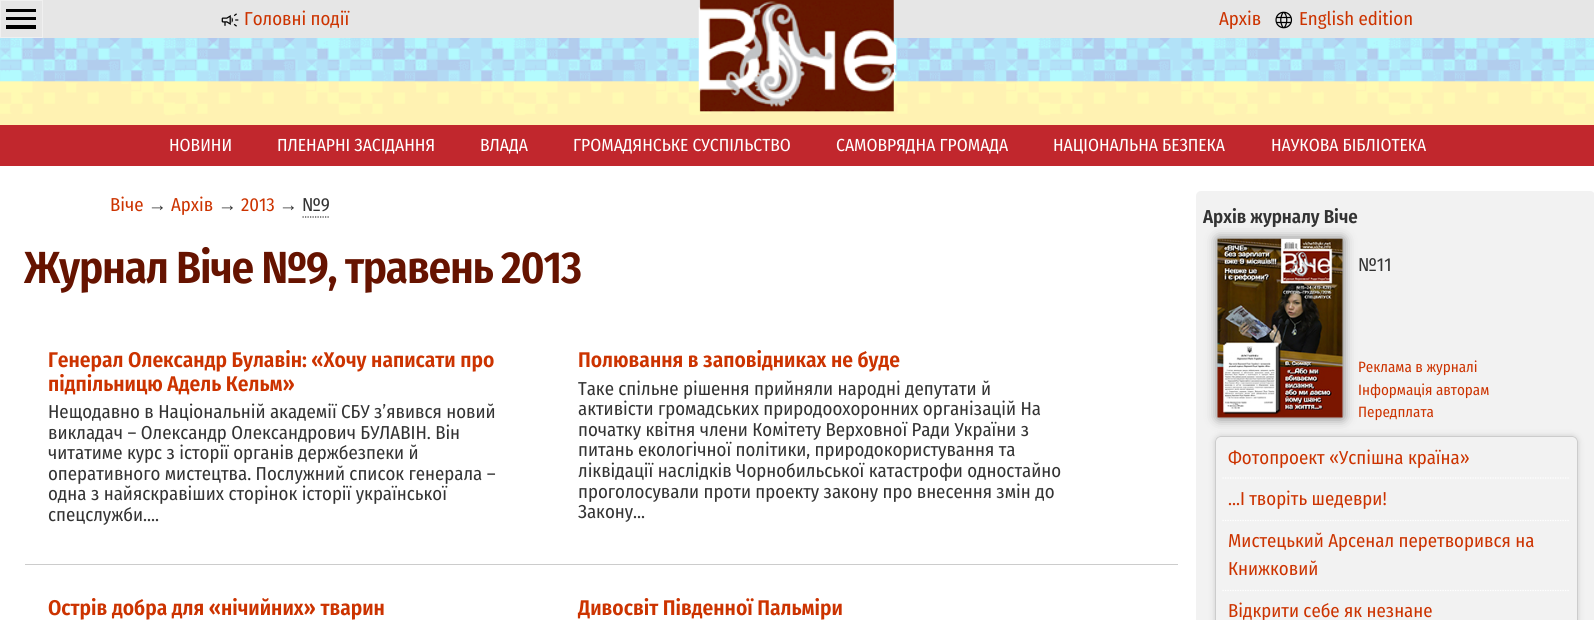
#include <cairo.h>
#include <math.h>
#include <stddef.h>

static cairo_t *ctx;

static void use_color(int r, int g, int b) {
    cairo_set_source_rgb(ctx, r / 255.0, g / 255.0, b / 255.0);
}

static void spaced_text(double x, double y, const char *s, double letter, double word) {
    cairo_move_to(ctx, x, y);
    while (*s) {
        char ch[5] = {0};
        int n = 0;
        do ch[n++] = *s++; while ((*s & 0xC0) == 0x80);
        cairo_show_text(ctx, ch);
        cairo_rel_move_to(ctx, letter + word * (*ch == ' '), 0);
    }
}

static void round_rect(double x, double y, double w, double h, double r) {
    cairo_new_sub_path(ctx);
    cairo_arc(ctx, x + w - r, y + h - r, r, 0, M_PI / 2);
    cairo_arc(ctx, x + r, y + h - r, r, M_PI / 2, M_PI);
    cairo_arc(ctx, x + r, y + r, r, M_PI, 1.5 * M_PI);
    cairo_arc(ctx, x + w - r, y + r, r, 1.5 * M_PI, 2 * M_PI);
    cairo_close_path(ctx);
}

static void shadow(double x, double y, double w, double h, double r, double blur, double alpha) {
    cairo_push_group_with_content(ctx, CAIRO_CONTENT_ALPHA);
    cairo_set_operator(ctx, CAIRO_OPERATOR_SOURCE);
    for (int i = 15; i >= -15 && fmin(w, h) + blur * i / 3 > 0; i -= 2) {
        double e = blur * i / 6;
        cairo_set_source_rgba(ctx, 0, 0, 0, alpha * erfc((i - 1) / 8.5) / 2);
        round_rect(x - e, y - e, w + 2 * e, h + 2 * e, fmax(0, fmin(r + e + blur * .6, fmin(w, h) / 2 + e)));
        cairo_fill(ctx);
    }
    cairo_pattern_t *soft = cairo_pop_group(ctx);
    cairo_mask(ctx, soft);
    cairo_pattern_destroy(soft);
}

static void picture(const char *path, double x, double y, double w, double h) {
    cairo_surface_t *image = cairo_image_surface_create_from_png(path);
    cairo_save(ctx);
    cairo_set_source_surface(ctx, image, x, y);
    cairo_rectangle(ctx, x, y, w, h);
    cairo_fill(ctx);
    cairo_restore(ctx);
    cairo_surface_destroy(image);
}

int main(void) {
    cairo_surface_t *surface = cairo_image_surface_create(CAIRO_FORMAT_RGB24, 1594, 620);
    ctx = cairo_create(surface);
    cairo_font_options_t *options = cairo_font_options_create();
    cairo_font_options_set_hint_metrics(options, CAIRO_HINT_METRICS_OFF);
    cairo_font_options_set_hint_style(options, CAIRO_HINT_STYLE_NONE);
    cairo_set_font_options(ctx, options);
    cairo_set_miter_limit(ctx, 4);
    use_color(255, 255, 255);
    cairo_paint(ctx);
    picture("img1.png", 0, 38, 1594, 87);
    use_color(230, 230, 230);
    cairo_rectangle(ctx, 1, 0, 1593, 38);
    cairo_fill(ctx);
    picture("img2.png", 698, 0, 199, 112);
    cairo_rectangle(ctx, 0.5, 0.5, 42, 37);
    use_color(240, 240, 240);
    cairo_set_line_width(ctx, 1);
    cairo_stroke(ctx);
    use_color(0, 0, 0);
    cairo_rectangle(ctx, 6, 9, 30, 3);
    cairo_fill(ctx);
    cairo_rectangle(ctx, 6, 17, 30, 3);
    cairo_fill(ctx);
    cairo_rectangle(ctx, 6, 25, 30, 4);
    cairo_fill(ctx);
    picture("img3.png", 221, 13, 18, 14);
    cairo_select_font_face(ctx, "Fira Sans Condensed", CAIRO_FONT_SLANT_NORMAL, CAIRO_FONT_WEIGHT_NORMAL);
    cairo_set_font_size(ctx, 18.75);
    use_color(204, 51, 0);
    cairo_move_to(ctx, 244, 25);
    cairo_show_text(ctx, "Головні події");
    cairo_move_to(ctx, 1219, 25);
    cairo_show_text(ctx, "Архів");
    picture("img4.png", 1275, 11, 18, 18);
    cairo_move_to(ctx, 1299, 25);
    cairo_show_text(ctx, "English edition");
    use_color(193, 39, 45);
    cairo_rectangle(ctx, 0, 125, 1594, 41);
    cairo_fill(ctx);
    cairo_set_font_size(ctx, 17.5);
    use_color(255, 255, 255);
    cairo_move_to(ctx, 169, 151);
    cairo_show_text(ctx, "НОВИНИ");
    cairo_move_to(ctx, 277, 151);
    cairo_show_text(ctx, "ПЛЕНАРНІ ЗАСІДАННЯ");
    cairo_move_to(ctx, 480, 151);
    cairo_show_text(ctx, "ВЛАДА");
    cairo_move_to(ctx, 573, 151);
    cairo_show_text(ctx, "ГРОМАДЯНСЬКЕ СУСПІЛЬСТВО");
    cairo_move_to(ctx, 836, 151);
    cairo_show_text(ctx, "САМОВРЯДНА ГРОМАДА");
    cairo_move_to(ctx, 1053, 151);
    cairo_show_text(ctx, "НАЦІОНАЛЬНА БЕЗПЕКА");
    cairo_move_to(ctx, 1271, 151);
    cairo_show_text(ctx, "НАУКОВА БІБЛІОТЕКА");
    cairo_set_font_size(ctx, 18.75);
    use_color(204, 51, 0);
    cairo_move_to(ctx, 110, 211);
    cairo_show_text(ctx, "Віче");
    cairo_select_font_face(ctx, "Liberation Sans", CAIRO_FONT_SLANT_NORMAL, CAIRO_FONT_WEIGHT_NORMAL);
    use_color(51, 51, 51);
    cairo_move_to(ctx, 148, 211);
    cairo_show_text(ctx, "→");
    cairo_select_font_face(ctx, "Fira Sans Condensed", CAIRO_FONT_SLANT_NORMAL, CAIRO_FONT_WEIGHT_NORMAL);
    use_color(204, 51, 0);
    cairo_move_to(ctx, 171, 211);
    cairo_show_text(ctx, "Архів");
    cairo_select_font_face(ctx, "Liberation Sans", CAIRO_FONT_SLANT_NORMAL, CAIRO_FONT_WEIGHT_NORMAL);
    use_color(51, 51, 51);
    cairo_move_to(ctx, 218, 211);
    cairo_show_text(ctx, "→");
    cairo_select_font_face(ctx, "Fira Sans Condensed", CAIRO_FONT_SLANT_NORMAL, CAIRO_FONT_WEIGHT_NORMAL);
    use_color(204, 51, 0);
    cairo_move_to(ctx, 241, 211);
    cairo_show_text(ctx, "2013");
    cairo_select_font_face(ctx, "Liberation Sans", CAIRO_FONT_SLANT_NORMAL, CAIRO_FONT_WEIGHT_NORMAL);
    use_color(51, 51, 51);
    cairo_move_to(ctx, 279, 211);
    cairo_show_text(ctx, "→");
    cairo_select_font_face(ctx, "Fira Sans Condensed", CAIRO_FONT_SLANT_NORMAL, CAIRO_FONT_WEIGHT_NORMAL);
    cairo_move_to(ctx, 302, 211);
    cairo_show_text(ctx, "№9");
    cairo_new_path(ctx);
    cairo_move_to(ctx, 302.5, 217);
    cairo_line_to(ctx, 330, 217);
    cairo_set_line_width(ctx, 1.2);
    cairo_set_dash(ctx, (double[]){1.25, 1.25}, 2, 0);
    cairo_stroke(ctx);
    cairo_select_font_face(ctx, "Fira Sans Condensed SemiBold", CAIRO_FONT_SLANT_NORMAL, CAIRO_FONT_WEIGHT_NORMAL);
    cairo_set_font_size(ctx, 45);
    use_color(102, 19, 0);
    spaced_text(24, 283, "Журнал Віче №9, травень 2013", -1.25, 0);
    cairo_set_font_size(ctx, 21.25);
    use_color(204, 51, 0);
    cairo_move_to(ctx, 48, 367);
    cairo_show_text(ctx, "Генерал Олександр Булавін: «Хочу написати про");
    cairo_move_to(ctx, 48, 391);
    cairo_show_text(ctx, "підпільницю Адель Кельм»");
    cairo_select_font_face(ctx, "Fira Sans Condensed", CAIRO_FONT_SLANT_NORMAL, CAIRO_FONT_WEIGHT_NORMAL);
    cairo_set_font_size(ctx, 18.75);
    use_color(51, 51, 51);
    cairo_move_to(ctx, 48, 418);
    cairo_show_text(ctx, "Нещодавно в Національній академії СБУ з’явився новий");
    cairo_move_to(ctx, 48, 439);
    cairo_show_text(ctx, "викладач – Олександр Олександрович БУЛАВІН. Він");
    cairo_move_to(ctx, 48, 459);
    cairo_show_text(ctx, "читатиме курс з історії органів держбезпеки й");
    cairo_move_to(ctx, 48, 480);
    cairo_show_text(ctx, "оперативного мистецтва. Послужний список генерала –");
    cairo_move_to(ctx, 48, 500);
    cairo_show_text(ctx, "одна з найяскравіших сторінок історії української");
    cairo_move_to(ctx, 48, 521);
    cairo_show_text(ctx, "спецслужби.…");
    cairo_select_font_face(ctx, "Fira Sans Condensed SemiBold", CAIRO_FONT_SLANT_NORMAL, CAIRO_FONT_WEIGHT_NORMAL);
    cairo_set_font_size(ctx, 21.25);
    use_color(204, 51, 0);
    cairo_move_to(ctx, 578, 367);
    cairo_show_text(ctx, "Полювання в заповідниках не буде");
    cairo_select_font_face(ctx, "Fira Sans Condensed", CAIRO_FONT_SLANT_NORMAL, CAIRO_FONT_WEIGHT_NORMAL);
    cairo_set_font_size(ctx, 18.75);
    use_color(51, 51, 51);
    cairo_move_to(ctx, 578, 395);
    cairo_show_text(ctx, "Таке спільне рішення прийняли народні депутати й");
    cairo_move_to(ctx, 578, 415);
    cairo_show_text(ctx, "активісти громадських природоохоронних організацій На");
    cairo_move_to(ctx, 578, 436);
    cairo_show_text(ctx, "початку квітня члени Комітету Верховної Ради України з");
    cairo_move_to(ctx, 578, 456);
    cairo_show_text(ctx, "питань екологічної політики, природокористування та");
    cairo_move_to(ctx, 578, 477);
    cairo_show_text(ctx, "ліквідації наслідків Чорнобильської катастрофи одностайно");
    cairo_move_to(ctx, 578, 498);
    cairo_show_text(ctx, "проголосували проти проекту закону про внесення змін до");
    cairo_move_to(ctx, 578, 518);
    cairo_show_text(ctx, "Закону…");
    use_color(204, 204, 204);
    cairo_rectangle(ctx, 25, 564, 1153, 1);
    cairo_fill(ctx);
    cairo_select_font_face(ctx, "Fira Sans Condensed SemiBold", CAIRO_FONT_SLANT_NORMAL, CAIRO_FONT_WEIGHT_NORMAL);
    cairo_set_font_size(ctx, 21.25);
    use_color(204, 51, 0);
    cairo_move_to(ctx, 48, 615);
    cairo_show_text(ctx, "Острів добра для «нічийних» тварин");
    cairo_move_to(ctx, 578, 615);
    cairo_show_text(ctx, "Дивосвіт Південної Пальміри");
    use_color(242, 242, 242);
    round_rect(1196, 191, 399, 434, 5);
    cairo_fill(ctx);
    use_color(0, 0, 0);
    shadow(1218, 239, 125, 179, 0, 6, 0.5);
    cairo_set_font_size(ctx, 18.75);
    use_color(51, 51, 51);
    cairo_move_to(ctx, 1203, 223);
    cairo_show_text(ctx, "Архів журналу Віче");
    picture("img5.png", 1217, 238, 126, 180);
    cairo_select_font_face(ctx, "Fira Sans Condensed", CAIRO_FONT_SLANT_NORMAL, CAIRO_FONT_WEIGHT_NORMAL);
    cairo_move_to(ctx, 1358, 271);
    cairo_show_text(ctx, "№11");
    cairo_set_font_size(ctx, 15);
    use_color(204, 51, 0);
    cairo_move_to(ctx, 1358, 372);
    cairo_show_text(ctx, "Реклама в журналі");
    cairo_move_to(ctx, 1358, 395);
    cairo_show_text(ctx, "Інформація авторам");
    cairo_move_to(ctx, 1358, 417);
    cairo_show_text(ctx, "Передплата");
    cairo_save(ctx);
    cairo_set_fill_rule(ctx, CAIRO_FILL_RULE_EVEN_ODD);
    cairo_new_path(ctx);
    cairo_move_to(ctx, 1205, 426);
    cairo_line_to(ctx, 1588, 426);
    cairo_line_to(ctx, 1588, 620);
    cairo_line_to(ctx, 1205, 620);
    cairo_close_path(ctx);
    cairo_move_to(ctx, 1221, 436);
    cairo_line_to(ctx, 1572, 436);
    cairo_curve_to(ctx, 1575.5, 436, 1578, 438.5, 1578, 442);
    cairo_line_to(ctx, 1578, 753);
    cairo_curve_to(ctx, 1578, 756.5, 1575.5, 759, 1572, 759);
    cairo_line_to(ctx, 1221, 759);
    cairo_curve_to(ctx, 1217.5, 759, 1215, 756.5, 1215, 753);
    cairo_line_to(ctx, 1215, 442);
    cairo_curve_to(ctx, 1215, 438.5, 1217.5, 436, 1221, 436);
    cairo_close_path(ctx);
    cairo_clip(ctx);
    use_color(204, 204, 204);
    shadow(1215, 436, 363, 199, 6, 3, 1);
    cairo_restore(ctx);
    round_rect(1215.5, 436.5, 362, 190, 5.5);
    use_color(204, 204, 204);
    cairo_set_line_width(ctx, 1);
    cairo_set_dash(ctx, NULL, 0, 0);
    cairo_stroke(ctx);
    cairo_new_path(ctx);
    cairo_move_to(ctx, 1222.5, 478);
    cairo_line_to(ctx, 1570, 478);
    use_color(255, 255, 255);
    cairo_set_line_width(ctx, 1.2);
    cairo_set_dash(ctx, (double[]){1.25, 1.25}, 2, 0);
    cairo_stroke(ctx);
    cairo_set_font_size(ctx, 18.75);
    use_color(204, 51, 0);
    cairo_move_to(ctx, 1228, 464);
    cairo_show_text(ctx, "Фотопроект «Успішна країна»");
    cairo_new_path(ctx);
    cairo_move_to(ctx, 1222.5, 520.5);
    cairo_line_to(ctx, 1570, 520.5);
    use_color(255, 255, 255);
    cairo_stroke(ctx);
    use_color(204, 51, 0);
    cairo_move_to(ctx, 1228, 505);
    cairo_show_text(ctx, "...І творіть шедеври!");
    cairo_new_path(ctx);
    cairo_move_to(ctx, 1222.5, 590.5);
    cairo_line_to(ctx, 1570, 590.5);
    use_color(255, 255, 255);
    cairo_stroke(ctx);
    use_color(204, 51, 0);
    cairo_move_to(ctx, 1228, 547);
    cairo_show_text(ctx, "Мистецький Арсенал перетворився на");
    cairo_move_to(ctx, 1228, 575);
    cairo_show_text(ctx, "Книжковий");
    cairo_move_to(ctx, 1228, 617);
    cairo_show_text(ctx, "Вiдкрити себе як незнане");
    cairo_surface_write_to_png(surface, "result.png");
    cairo_font_options_destroy(options);
    cairo_destroy(ctx);
    cairo_surface_destroy(surface);
    return 0;
}
